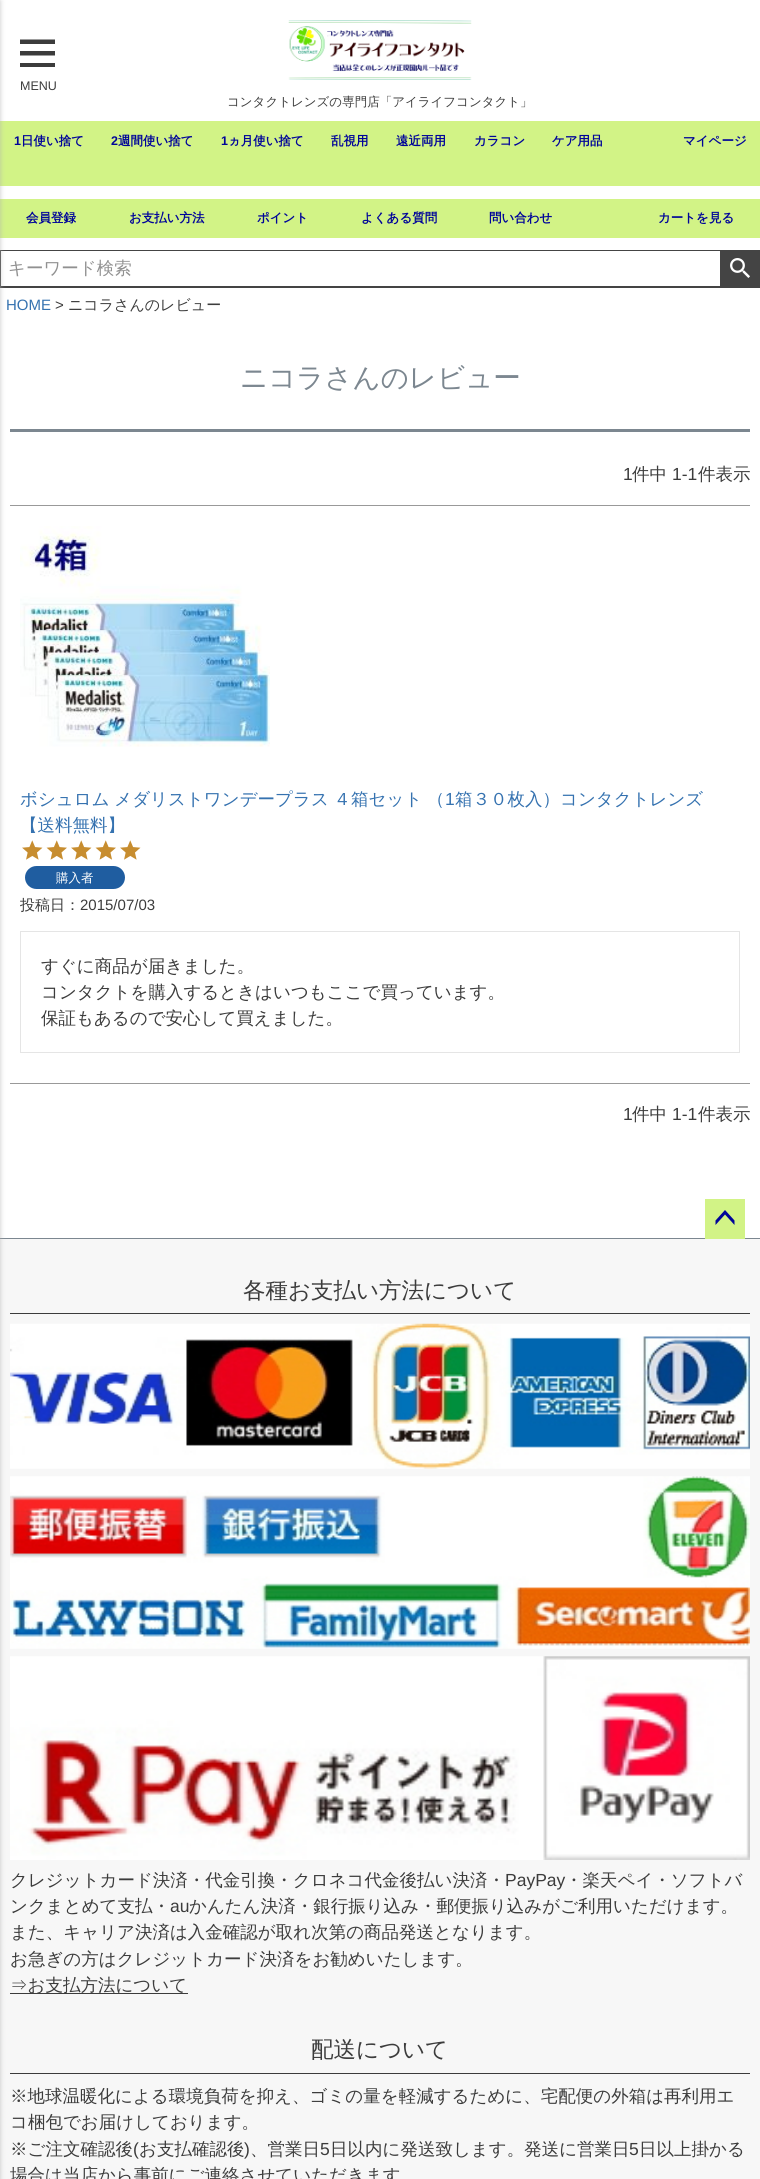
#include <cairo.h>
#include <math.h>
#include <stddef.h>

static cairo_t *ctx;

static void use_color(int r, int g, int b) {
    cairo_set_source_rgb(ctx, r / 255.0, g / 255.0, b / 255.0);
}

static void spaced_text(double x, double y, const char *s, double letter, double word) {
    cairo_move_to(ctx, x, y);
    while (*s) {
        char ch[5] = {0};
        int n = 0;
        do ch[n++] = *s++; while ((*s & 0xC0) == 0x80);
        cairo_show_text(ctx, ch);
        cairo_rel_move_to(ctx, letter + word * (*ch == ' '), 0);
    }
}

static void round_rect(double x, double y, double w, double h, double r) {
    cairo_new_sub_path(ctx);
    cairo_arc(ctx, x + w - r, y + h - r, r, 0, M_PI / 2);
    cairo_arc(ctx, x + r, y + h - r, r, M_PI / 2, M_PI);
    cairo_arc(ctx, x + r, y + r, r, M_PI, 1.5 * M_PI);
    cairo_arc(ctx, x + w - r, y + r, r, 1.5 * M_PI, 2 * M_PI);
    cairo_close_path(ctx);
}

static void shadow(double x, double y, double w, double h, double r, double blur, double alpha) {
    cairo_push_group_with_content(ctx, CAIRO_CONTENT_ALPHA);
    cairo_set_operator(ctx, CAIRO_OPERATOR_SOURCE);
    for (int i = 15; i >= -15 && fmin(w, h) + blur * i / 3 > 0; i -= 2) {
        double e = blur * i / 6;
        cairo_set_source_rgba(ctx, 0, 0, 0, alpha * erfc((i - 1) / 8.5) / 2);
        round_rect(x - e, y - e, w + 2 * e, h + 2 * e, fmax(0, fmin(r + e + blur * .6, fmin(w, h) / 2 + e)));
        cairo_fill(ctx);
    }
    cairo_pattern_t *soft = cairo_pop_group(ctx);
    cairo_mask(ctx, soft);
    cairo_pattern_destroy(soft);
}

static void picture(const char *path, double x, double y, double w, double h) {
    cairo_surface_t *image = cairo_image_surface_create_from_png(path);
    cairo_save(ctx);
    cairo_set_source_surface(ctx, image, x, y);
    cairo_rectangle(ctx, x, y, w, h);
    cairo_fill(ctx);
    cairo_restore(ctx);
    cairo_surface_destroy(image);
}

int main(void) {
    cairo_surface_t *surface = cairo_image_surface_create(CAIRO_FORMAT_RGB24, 760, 2179);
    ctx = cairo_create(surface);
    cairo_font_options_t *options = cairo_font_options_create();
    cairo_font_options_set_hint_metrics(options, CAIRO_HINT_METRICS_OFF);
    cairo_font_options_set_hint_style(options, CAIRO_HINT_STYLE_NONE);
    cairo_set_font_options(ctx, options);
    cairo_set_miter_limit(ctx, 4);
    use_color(255, 255, 255);
    cairo_paint(ctx);
    use_color(60, 60, 60);
    cairo_new_path(ctx);
    cairo_move_to(ctx, 20, 39.5);
    cairo_line_to(ctx, 55, 39.5);
    cairo_line_to(ctx, 55, 44);
    cairo_line_to(ctx, 20, 44);
    cairo_close_path(ctx);
    cairo_move_to(ctx, 20, 51);
    cairo_line_to(ctx, 55, 51);
    cairo_line_to(ctx, 55, 55.5);
    cairo_line_to(ctx, 20, 55.5);
    cairo_close_path(ctx);
    cairo_move_to(ctx, 20, 63);
    cairo_line_to(ctx, 55, 63);
    cairo_line_to(ctx, 55, 67);
    cairo_line_to(ctx, 20, 67);
    cairo_close_path(ctx);
    cairo_fill(ctx);
    cairo_select_font_face(ctx, "Liberation Sans", CAIRO_FONT_SLANT_NORMAL, CAIRO_FONT_WEIGHT_NORMAL);
    cairo_set_font_size(ctx, 12.5);
    cairo_move_to(ctx, 20, 90);
    cairo_show_text(ctx, "MENU");
    picture("img1.png", 288, 20, 184, 60);
    cairo_select_font_face(ctx, "WenQuanYi Zen Hei Medium", CAIRO_FONT_SLANT_NORMAL, CAIRO_FONT_WEIGHT_NORMAL);
    cairo_move_to(ctx, 227, 106);
    cairo_show_text(ctx, "コンタクトレンズの専門店「アイライフコンタクト」");
    use_color(210, 243, 134);
    cairo_rectangle(ctx, 0, 121, 760, 65);
    cairo_fill(ctx);
    cairo_select_font_face(ctx, "Liberation Sans", CAIRO_FONT_SLANT_NORMAL, CAIRO_FONT_WEIGHT_BOLD);
    use_color(0, 4, 153);
    cairo_move_to(ctx, 14, 145);
    cairo_show_text(ctx, "1");
    cairo_select_font_face(ctx, "WenQuanYi Zen Hei", CAIRO_FONT_SLANT_NORMAL, CAIRO_FONT_WEIGHT_BOLD);
    cairo_move_to(ctx, 21, 145);
    cairo_show_text(ctx, "日使い捨て");
    cairo_select_font_face(ctx, "Liberation Sans", CAIRO_FONT_SLANT_NORMAL, CAIRO_FONT_WEIGHT_BOLD);
    cairo_move_to(ctx, 111, 145);
    cairo_show_text(ctx, "2");
    cairo_select_font_face(ctx, "WenQuanYi Zen Hei", CAIRO_FONT_SLANT_NORMAL, CAIRO_FONT_WEIGHT_BOLD);
    cairo_move_to(ctx, 118, 145);
    cairo_show_text(ctx, "週間使い捨て");
    cairo_select_font_face(ctx, "Liberation Sans", CAIRO_FONT_SLANT_NORMAL, CAIRO_FONT_WEIGHT_BOLD);
    cairo_move_to(ctx, 221, 145);
    cairo_show_text(ctx, "1");
    cairo_select_font_face(ctx, "WenQuanYi Zen Hei", CAIRO_FONT_SLANT_NORMAL, CAIRO_FONT_WEIGHT_BOLD);
    cairo_move_to(ctx, 228, 145);
    cairo_show_text(ctx, "ヵ月使い捨て");
    cairo_move_to(ctx, 331, 145);
    cairo_show_text(ctx, "乱視用");
    cairo_move_to(ctx, 396, 145);
    cairo_show_text(ctx, "遠近両用");
    cairo_move_to(ctx, 474, 145);
    cairo_show_text(ctx, "カラコン");
    cairo_move_to(ctx, 552, 145);
    cairo_show_text(ctx, "ケア用品");
    cairo_move_to(ctx, 683, 145);
    cairo_show_text(ctx, "マイページ");
    use_color(210, 243, 134);
    cairo_rectangle(ctx, 0, 199, 760, 39);
    cairo_fill(ctx);
    use_color(0, 4, 153);
    cairo_move_to(ctx, 26, 222);
    cairo_show_text(ctx, "会員登録");
    cairo_move_to(ctx, 129, 222);
    cairo_show_text(ctx, "お支払い方法");
    cairo_move_to(ctx, 257, 222);
    cairo_show_text(ctx, "ポイント");
    cairo_move_to(ctx, 361, 222);
    cairo_show_text(ctx, "よくある質問");
    cairo_move_to(ctx, 489, 222);
    cairo_show_text(ctx, "問い合わせ");
    cairo_move_to(ctx, 658, 222);
    cairo_show_text(ctx, "カートを見る");
    use_color(68, 68, 68);
    cairo_rectangle(ctx, 0, 250, 760, 38);
    cairo_fill(ctx);
    use_color(255, 255, 255);
    cairo_rectangle(ctx, 1, 251, 719, 35);
    cairo_fill(ctx);
    cairo_select_font_face(ctx, "WenQuanYi Zen Hei Medium", CAIRO_FONT_SLANT_NORMAL, CAIRO_FONT_WEIGHT_NORMAL);
    cairo_set_font_size(ctx, 17.5);
    use_color(145, 145, 145);
    cairo_move_to(ctx, 8, 274);
    cairo_show_text(ctx, "キーワード検索");
    picture("img2.png", 730, 258, 20, 20);
    cairo_select_font_face(ctx, "Liberation Sans", CAIRO_FONT_SLANT_NORMAL, CAIRO_FONT_WEIGHT_NORMAL);
    cairo_set_font_size(ctx, 15);
    use_color(53, 114, 176);
    cairo_move_to(ctx, 6, 310);
    cairo_show_text(ctx, "HOME");
    use_color(60, 60, 60);
    cairo_move_to(ctx, 55, 310);
    cairo_show_text(ctx, ">");
    cairo_select_font_face(ctx, "WenQuanYi Zen Hei Medium", CAIRO_FONT_SLANT_NORMAL, CAIRO_FONT_WEIGHT_NORMAL);
    cairo_move_to(ctx, 68, 310);
    cairo_show_text(ctx, "ニコラさんのレビュー");
    use_color(247, 247, 247);
    cairo_rectangle(ctx, 0, 1239, 760, 940);
    cairo_fill(ctx);
    use_color(124, 135, 144);
    cairo_rectangle(ctx, 0, 1238, 760, 1);
    cairo_fill(ctx);
    use_color(178, 178, 178);
    shadow(-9, 1, 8, 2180, 0, 3, 1);
    use_color(124, 135, 144);
    cairo_rectangle(ctx, 10, 429, 740, 3);
    cairo_fill(ctx);
    cairo_set_font_size(ctx, 27.5);
    cairo_move_to(ctx, 240, 387);
    cairo_show_text(ctx, "ニコラさんのレビュー");
    cairo_select_font_face(ctx, "Liberation Sans", CAIRO_FONT_SLANT_NORMAL, CAIRO_FONT_WEIGHT_NORMAL);
    cairo_set_font_size(ctx, 17.5);
    use_color(60, 60, 60);
    cairo_move_to(ctx, 623, 480);
    cairo_show_text(ctx, "1");
    cairo_select_font_face(ctx, "WenQuanYi Zen Hei Medium", CAIRO_FONT_SLANT_NORMAL, CAIRO_FONT_WEIGHT_NORMAL);
    cairo_move_to(ctx, 632, 480);
    cairo_show_text(ctx, "件中");
    cairo_select_font_face(ctx, "Liberation Sans", CAIRO_FONT_SLANT_NORMAL, CAIRO_FONT_WEIGHT_NORMAL);
    cairo_move_to(ctx, 672, 480);
    cairo_show_text(ctx, "1-1");
    cairo_select_font_face(ctx, "WenQuanYi Zen Hei Medium", CAIRO_FONT_SLANT_NORMAL, CAIRO_FONT_WEIGHT_NORMAL);
    cairo_move_to(ctx, 698, 480);
    cairo_show_text(ctx, "件表示");
    use_color(153, 153, 153);
    cairo_rectangle(ctx, 10, 505, 740, 1);
    cairo_fill(ctx);
    cairo_rectangle(ctx, 10, 1083, 740, 1);
    cairo_fill(ctx);
    picture("img3.png", 20, 526, 250, 221);
    use_color(53, 114, 176);
    spaced_text(20, 805, "ボシュロム メダリストワンデープラス ４箱セット （", 0, -0.5);
    cairo_select_font_face(ctx, "Liberation Sans", CAIRO_FONT_SLANT_NORMAL, CAIRO_FONT_WEIGHT_NORMAL);
    cairo_move_to(ctx, 445, 805);
    cairo_show_text(ctx, "1");
    cairo_select_font_face(ctx, "WenQuanYi Zen Hei Medium", CAIRO_FONT_SLANT_NORMAL, CAIRO_FONT_WEIGHT_NORMAL);
    cairo_move_to(ctx, 455, 805);
    cairo_show_text(ctx, "箱３０枚入）コンタクトレンズ");
    cairo_move_to(ctx, 20, 831);
    cairo_show_text(ctx, "【送料無料】");
    picture("img4.png", 22, 840, 119, 20);
    use_color(31, 93, 160);
    round_rect(25, 866, 100, 23, 11.5);
    cairo_fill(ctx);
    cairo_set_font_size(ctx, 12.5);
    use_color(255, 255, 255);
    cairo_move_to(ctx, 56, 882);
    cairo_show_text(ctx, "購入者");
    cairo_set_font_size(ctx, 15);
    use_color(60, 60, 60);
    cairo_move_to(ctx, 20, 910);
    cairo_show_text(ctx, "投稿日：");
    cairo_select_font_face(ctx, "Liberation Sans", CAIRO_FONT_SLANT_NORMAL, CAIRO_FONT_WEIGHT_NORMAL);
    cairo_move_to(ctx, 80, 910);
    cairo_show_text(ctx, "2015/07/03");
    cairo_rectangle(ctx, 20.5, 931.5, 719, 121);
    use_color(229, 229, 229);
    cairo_set_line_width(ctx, 1);
    cairo_stroke(ctx);
    cairo_select_font_face(ctx, "WenQuanYi Zen Hei Medium", CAIRO_FONT_SLANT_NORMAL, CAIRO_FONT_WEIGHT_NORMAL);
    cairo_set_font_size(ctx, 17.5);
    use_color(60, 60, 60);
    cairo_move_to(ctx, 41, 972);
    cairo_show_text(ctx, "すぐに商品が届きました。");
    cairo_move_to(ctx, 41, 998);
    cairo_show_text(ctx, "コンタクトを購入するときはいつもここで買っています。");
    cairo_move_to(ctx, 41, 1024);
    cairo_show_text(ctx, "保証もあるので安心して買えました。");
    cairo_select_font_face(ctx, "Liberation Sans", CAIRO_FONT_SLANT_NORMAL, CAIRO_FONT_WEIGHT_NORMAL);
    cairo_move_to(ctx, 623, 1120);
    cairo_show_text(ctx, "1");
    cairo_select_font_face(ctx, "WenQuanYi Zen Hei Medium", CAIRO_FONT_SLANT_NORMAL, CAIRO_FONT_WEIGHT_NORMAL);
    cairo_move_to(ctx, 632, 1120);
    cairo_show_text(ctx, "件中");
    cairo_select_font_face(ctx, "Liberation Sans", CAIRO_FONT_SLANT_NORMAL, CAIRO_FONT_WEIGHT_NORMAL);
    cairo_move_to(ctx, 672, 1120);
    cairo_show_text(ctx, "1-1");
    cairo_select_font_face(ctx, "WenQuanYi Zen Hei Medium", CAIRO_FONT_SLANT_NORMAL, CAIRO_FONT_WEIGHT_NORMAL);
    cairo_move_to(ctx, 698, 1120);
    cairo_show_text(ctx, "件表示");
    use_color(210, 243, 134);
    cairo_rectangle(ctx, 705, 1199, 40, 40);
    cairo_fill(ctx);
    use_color(0, 4, 153);
    cairo_new_path(ctx);
    cairo_move_to(ctx, 734.5, 1225);
    cairo_line_to(ctx, 725, 1214.5);
    cairo_line_to(ctx, 715.5, 1225);
    cairo_line_to(ctx, 715.5, 1220.5);
    cairo_line_to(ctx, 725, 1210);
    cairo_line_to(ctx, 734.5, 1220.5);
    cairo_close_path(ctx);
    cairo_fill(ctx);
    use_color(60, 60, 60);
    cairo_rectangle(ctx, 10, 1313, 740, 1);
    cairo_fill(ctx);
    cairo_set_font_size(ctx, 22.5);
    cairo_move_to(ctx, 243, 1298);
    cairo_show_text(ctx, "各種お支払い方法について");
    picture("img5.png", 10, 1323, 740, 146);
    picture("img6.png", 10, 1476, 740, 173);
    picture("img7.png", 10, 1656, 740, 204);
    cairo_set_font_size(ctx, 17.5);
    cairo_move_to(ctx, 10, 1886);
    cairo_show_text(ctx, "クレジットカード決済・代金引換・クロネコ代金後払い決済・");
    cairo_select_font_face(ctx, "Liberation Sans", CAIRO_FONT_SLANT_NORMAL, CAIRO_FONT_WEIGHT_NORMAL);
    cairo_move_to(ctx, 505, 1886);
    cairo_show_text(ctx, "PayPay");
    cairo_select_font_face(ctx, "WenQuanYi Zen Hei Medium", CAIRO_FONT_SLANT_NORMAL, CAIRO_FONT_WEIGHT_NORMAL);
    cairo_move_to(ctx, 565, 1886);
    cairo_show_text(ctx, "・楽天ペイ・ソフトバ");
    cairo_move_to(ctx, 10, 1912);
    cairo_show_text(ctx, "ンクまとめて支払・");
    cairo_select_font_face(ctx, "Liberation Sans", CAIRO_FONT_SLANT_NORMAL, CAIRO_FONT_WEIGHT_NORMAL);
    cairo_move_to(ctx, 170, 1912);
    cairo_show_text(ctx, "au");
    cairo_select_font_face(ctx, "WenQuanYi Zen Hei Medium", CAIRO_FONT_SLANT_NORMAL, CAIRO_FONT_WEIGHT_NORMAL);
    cairo_move_to(ctx, 189, 1912);
    cairo_show_text(ctx, "かんたん決済・銀行振り込み・郵便振り込みがご利用いただけます。");
    cairo_move_to(ctx, 10, 1938);
    cairo_show_text(ctx, "また、キャリア決済は入金確認が取れ次第の商品発送となります。");
    cairo_move_to(ctx, 10, 1965);
    cairo_show_text(ctx, "お急ぎの方はクレジットカード決済をお勧めいたします。");
    cairo_rectangle(ctx, 10, 1993, 178, 1);
    cairo_fill(ctx);
    cairo_move_to(ctx, 10, 1991);
    cairo_show_text(ctx, "⇒お支払方法について");
    cairo_rectangle(ctx, 10, 2073, 740, 1);
    cairo_fill(ctx);
    cairo_set_font_size(ctx, 22.5);
    cairo_move_to(ctx, 311, 2057);
    cairo_show_text(ctx, "配送について");
    cairo_set_font_size(ctx, 17.5);
    cairo_move_to(ctx, 10, 2102);
    cairo_show_text(ctx, "※地球温暖化による環境負荷を抑え、ゴミの量を軽減するために、宅配便の外箱は再利用エ");
    cairo_move_to(ctx, 10, 2128);
    cairo_show_text(ctx, "コ梱包でお届けしております。");
    cairo_move_to(ctx, 10, 2155);
    cairo_show_text(ctx, "※ご注文確認後");
    cairo_select_font_face(ctx, "Liberation Sans", CAIRO_FONT_SLANT_NORMAL, CAIRO_FONT_WEIGHT_NORMAL);
    cairo_move_to(ctx, 133, 2155);
    cairo_show_text(ctx, "(");
    cairo_select_font_face(ctx, "WenQuanYi Zen Hei Medium", CAIRO_FONT_SLANT_NORMAL, CAIRO_FONT_WEIGHT_NORMAL);
    cairo_move_to(ctx, 139, 2155);
    cairo_show_text(ctx, "お支払確認後");
    cairo_select_font_face(ctx, "Liberation Sans", CAIRO_FONT_SLANT_NORMAL, CAIRO_FONT_WEIGHT_NORMAL);
    cairo_move_to(ctx, 244, 2155);
    cairo_show_text(ctx, ")");
    cairo_select_font_face(ctx, "WenQuanYi Zen Hei Medium", CAIRO_FONT_SLANT_NORMAL, CAIRO_FONT_WEIGHT_NORMAL);
    cairo_move_to(ctx, 250, 2155);
    cairo_show_text(ctx, "、営業日");
    cairo_select_font_face(ctx, "Liberation Sans", CAIRO_FONT_SLANT_NORMAL, CAIRO_FONT_WEIGHT_NORMAL);
    cairo_move_to(ctx, 320, 2155);
    cairo_show_text(ctx, "5");
    cairo_select_font_face(ctx, "WenQuanYi Zen Hei Medium", CAIRO_FONT_SLANT_NORMAL, CAIRO_FONT_WEIGHT_NORMAL);
    cairo_move_to(ctx, 330, 2155);
    cairo_show_text(ctx, "日以内に発送致します。発送に営業日");
    cairo_select_font_face(ctx, "Liberation Sans", CAIRO_FONT_SLANT_NORMAL, CAIRO_FONT_WEIGHT_NORMAL);
    cairo_move_to(ctx, 629, 2155);
    cairo_show_text(ctx, "5");
    cairo_select_font_face(ctx, "WenQuanYi Zen Hei Medium", CAIRO_FONT_SLANT_NORMAL, CAIRO_FONT_WEIGHT_NORMAL);
    cairo_move_to(ctx, 639, 2155);
    cairo_show_text(ctx, "日以上掛かる");
    cairo_move_to(ctx, 10, 2181);
    cairo_show_text(ctx, "場合は当店から事前にご連絡させていただきます");
    cairo_surface_write_to_png(surface, "result.png");
    cairo_font_options_destroy(options);
    cairo_destroy(ctx);
    cairo_surface_destroy(surface);
    return 0;
}
